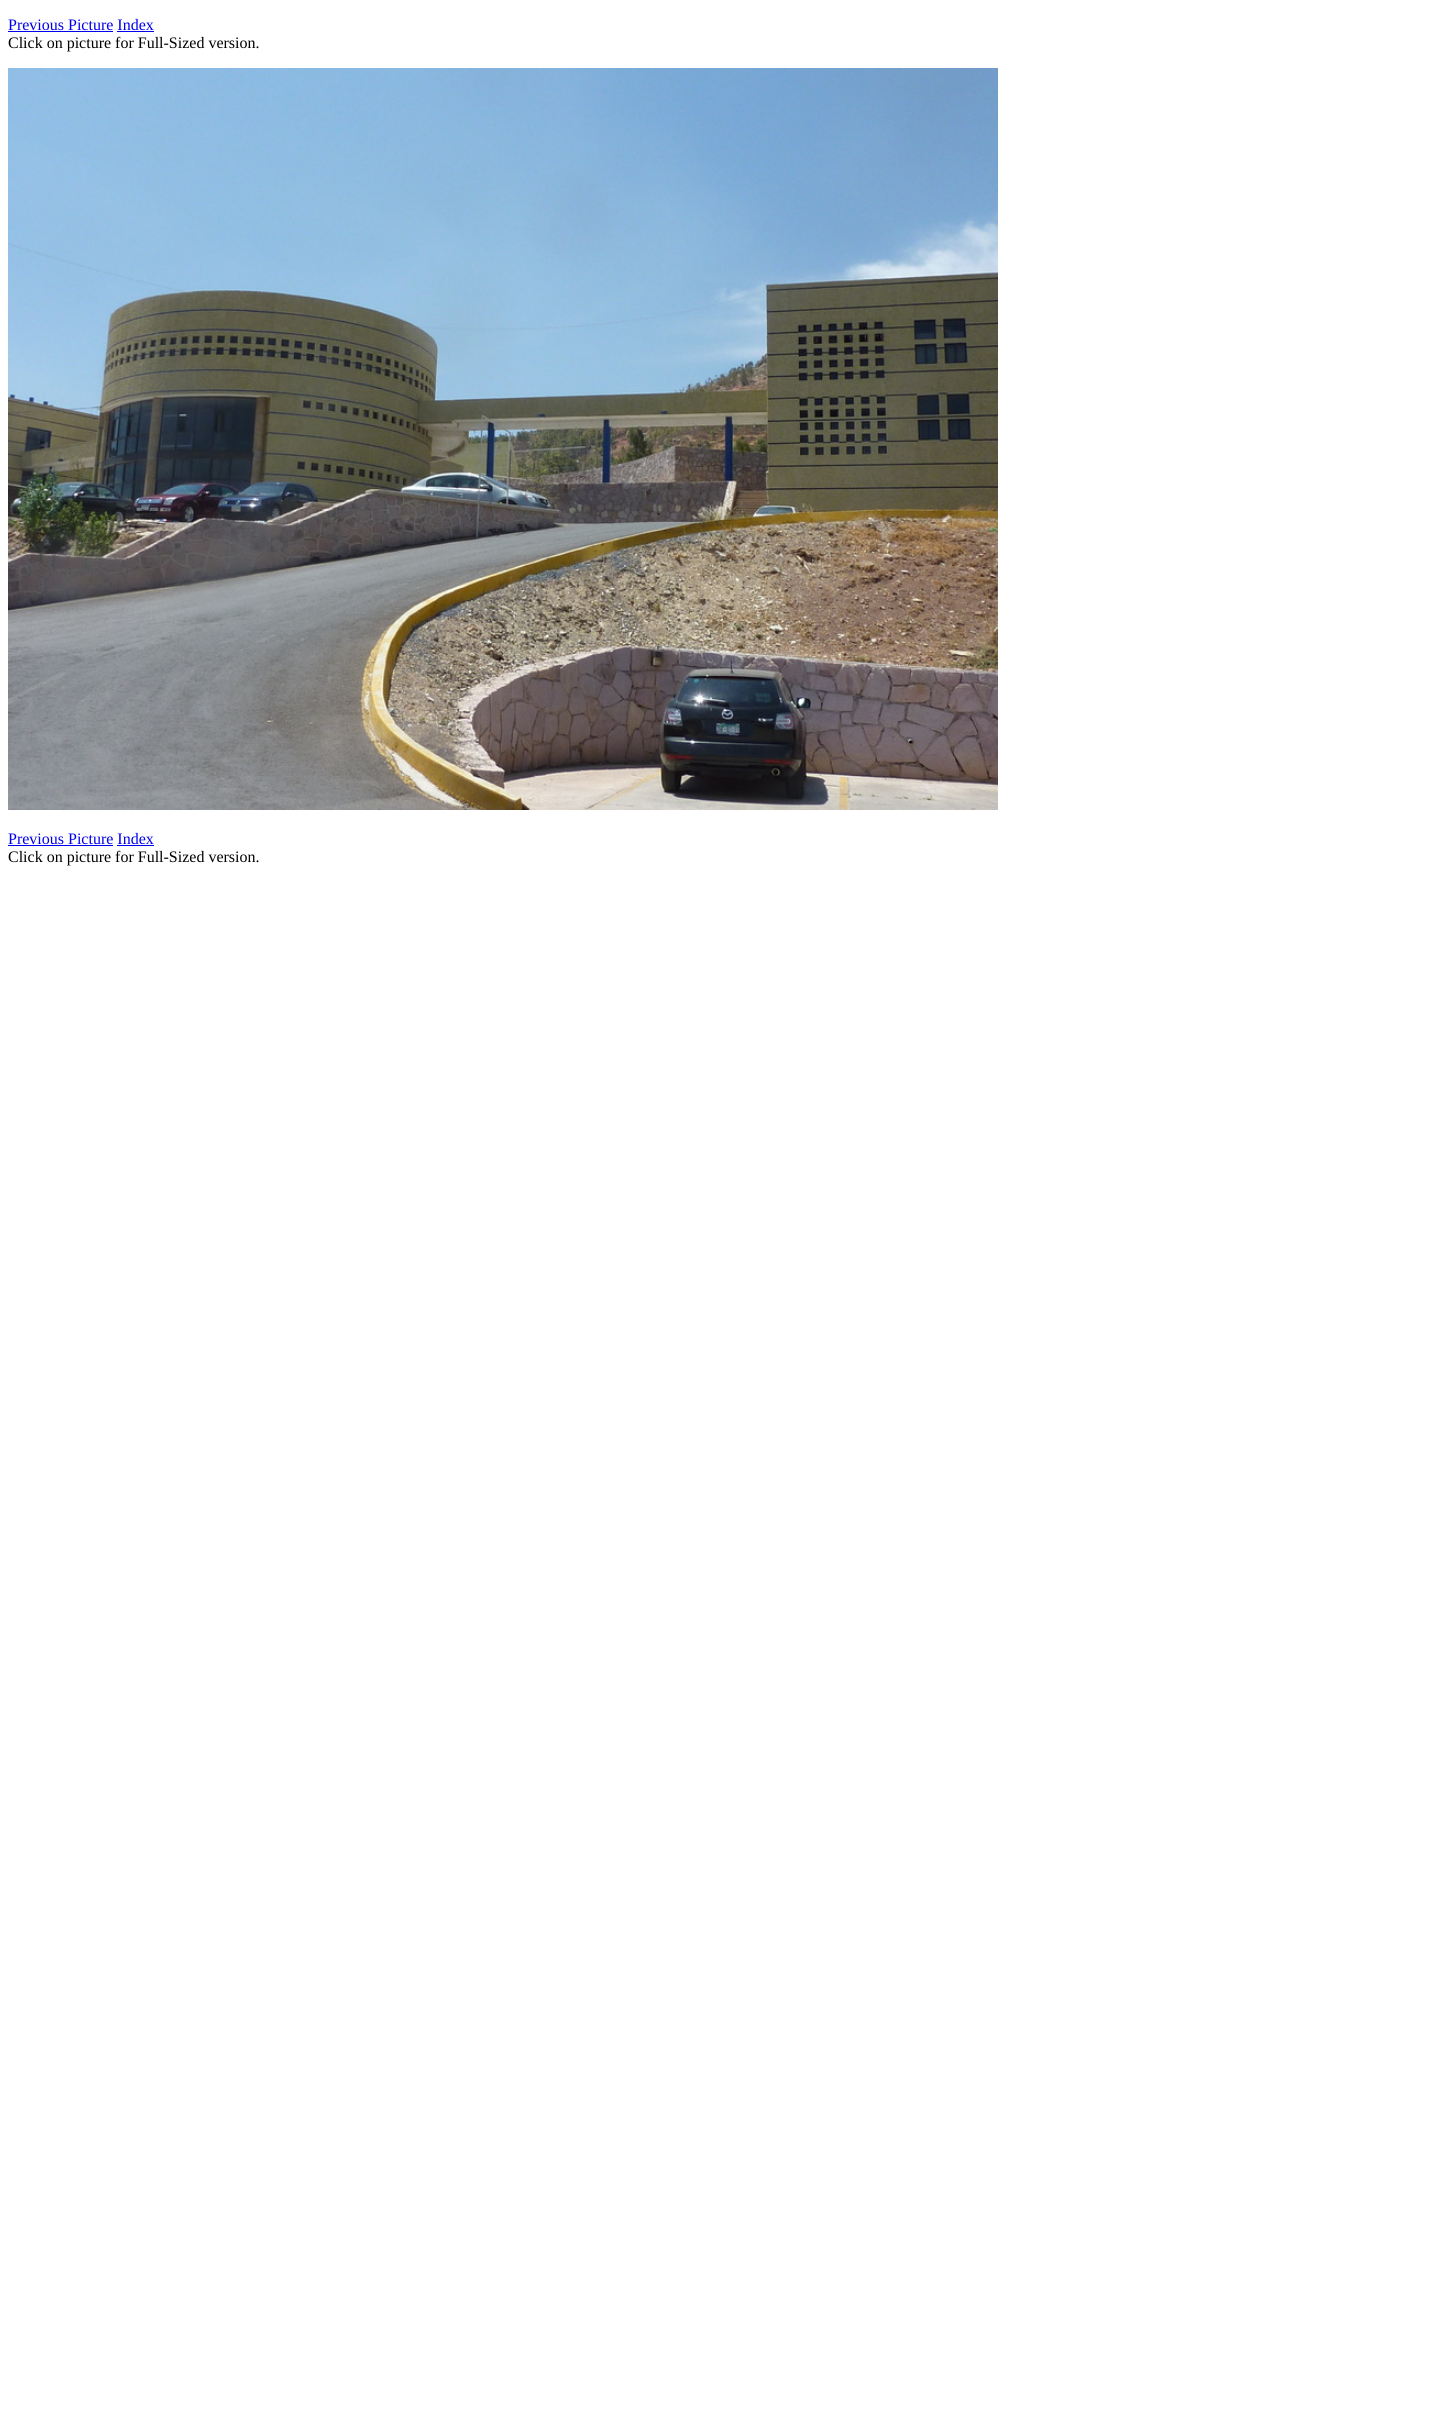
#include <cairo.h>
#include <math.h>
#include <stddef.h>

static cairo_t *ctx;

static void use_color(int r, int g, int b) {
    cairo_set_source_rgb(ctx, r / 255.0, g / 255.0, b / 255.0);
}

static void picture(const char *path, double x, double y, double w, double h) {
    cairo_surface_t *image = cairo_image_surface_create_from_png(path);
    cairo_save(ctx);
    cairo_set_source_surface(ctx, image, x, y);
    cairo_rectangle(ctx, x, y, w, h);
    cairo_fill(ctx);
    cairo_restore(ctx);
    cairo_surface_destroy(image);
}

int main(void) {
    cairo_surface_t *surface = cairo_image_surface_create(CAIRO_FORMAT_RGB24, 1430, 2432);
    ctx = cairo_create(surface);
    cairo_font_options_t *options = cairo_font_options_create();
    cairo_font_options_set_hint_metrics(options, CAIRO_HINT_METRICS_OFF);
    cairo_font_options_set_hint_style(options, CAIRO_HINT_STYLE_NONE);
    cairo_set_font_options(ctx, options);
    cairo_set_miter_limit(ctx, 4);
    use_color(255, 255, 255);
    cairo_paint(ctx);
    cairo_select_font_face(ctx, "Liberation Serif", CAIRO_FONT_SLANT_NORMAL, CAIRO_FONT_WEIGHT_NORMAL);
    cairo_set_font_size(ctx, 16);
    use_color(0, 0, 238);
    cairo_move_to(ctx, 8, 30);
    cairo_show_text(ctx, "Previous Picture Index");
    cairo_rectangle(ctx, 8, 31, 105, 1);
    cairo_fill(ctx);
    cairo_rectangle(ctx, 117, 31, 37, 1);
    cairo_fill(ctx);
    use_color(0, 0, 0);
    cairo_move_to(ctx, 8, 48);
    cairo_show_text(ctx, "Click on picture for Full-Sized version.");
    picture("img1.png", 8, 68, 990, 742);
    use_color(0, 0, 238);
    cairo_move_to(ctx, 8, 844);
    cairo_show_text(ctx, "Previous Picture Index");
    cairo_rectangle(ctx, 8, 845, 105, 1);
    cairo_fill(ctx);
    cairo_rectangle(ctx, 117, 845, 37, 1);
    cairo_fill(ctx);
    use_color(0, 0, 0);
    cairo_move_to(ctx, 8, 862);
    cairo_show_text(ctx, "Click on picture for Full-Sized version.");
    cairo_surface_write_to_png(surface, "result.png");
    cairo_font_options_destroy(options);
    cairo_destroy(ctx);
    cairo_surface_destroy(surface);
    return 0;
}
